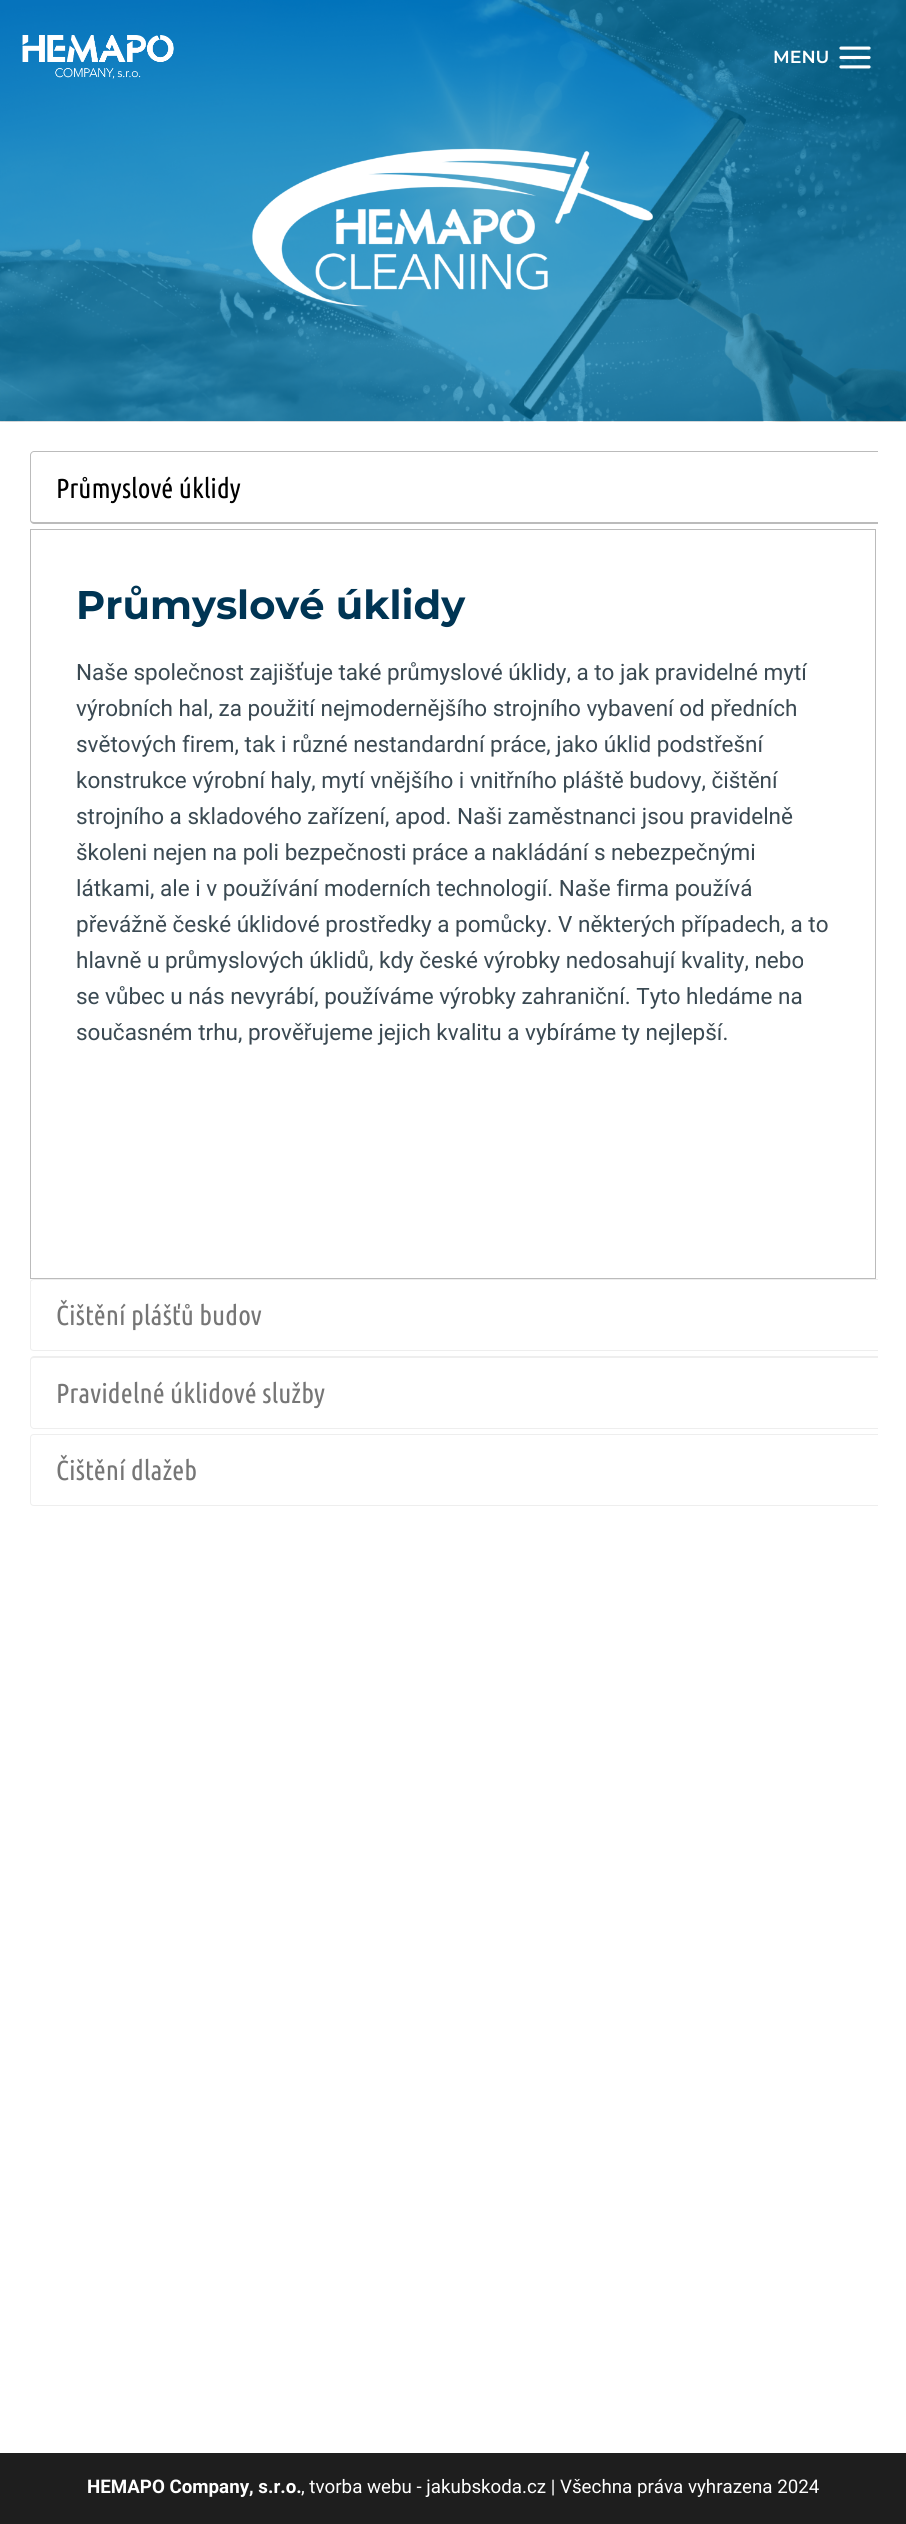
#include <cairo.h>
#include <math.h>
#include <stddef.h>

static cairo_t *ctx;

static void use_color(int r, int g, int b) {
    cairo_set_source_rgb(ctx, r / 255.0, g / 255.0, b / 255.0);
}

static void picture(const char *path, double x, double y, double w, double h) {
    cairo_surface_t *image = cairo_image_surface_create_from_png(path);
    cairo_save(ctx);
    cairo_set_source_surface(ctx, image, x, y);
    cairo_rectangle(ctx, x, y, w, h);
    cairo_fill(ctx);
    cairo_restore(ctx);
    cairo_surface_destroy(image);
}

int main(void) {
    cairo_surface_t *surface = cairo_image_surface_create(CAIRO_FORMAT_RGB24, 906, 2524);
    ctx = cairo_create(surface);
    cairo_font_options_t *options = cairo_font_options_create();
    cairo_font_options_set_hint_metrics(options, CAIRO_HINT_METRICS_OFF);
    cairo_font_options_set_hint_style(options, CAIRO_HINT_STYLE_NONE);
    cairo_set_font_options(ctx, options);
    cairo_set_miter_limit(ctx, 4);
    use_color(255, 255, 255);
    cairo_paint(ctx);
    picture("img3.png", 0, 0, 906, 422);
    picture("img1.png", 22, 35, 152, 44);
    cairo_select_font_face(ctx, "Montserrat SemiBold", CAIRO_FONT_SLANT_NORMAL, CAIRO_FONT_WEIGHT_NORMAL);
    cairo_set_font_size(ctx, 17.5);
    use_color(255, 255, 255);
    cairo_move_to(ctx, 773, 63);
    cairo_show_text(ctx, "MENU");
    picture("img2.png", 839, 46, 32, 23);
    picture("img4.png", 252, 148, 401, 159);
    use_color(187, 187, 187);
    cairo_set_fill_rule(ctx, CAIRO_FILL_RULE_EVEN_ODD);
    cairo_new_path(ctx);
    cairo_move_to(ctx, 34, 451);
    cairo_line_to(ctx, 878, 451);
    cairo_line_to(ctx, 878, 524);
    cairo_line_to(ctx, 34, 524);
    cairo_curve_to(ctx, 32, 524, 30, 522, 30, 520);
    cairo_line_to(ctx, 30, 455);
    cairo_curve_to(ctx, 30, 453, 32, 451, 34, 451);
    cairo_close_path(ctx);
    cairo_move_to(ctx, 34, 452);
    cairo_line_to(ctx, 878, 452);
    cairo_line_to(ctx, 878, 522);
    cairo_line_to(ctx, 34, 522);
    cairo_curve_to(ctx, 32, 522, 31, 521, 31, 520);
    cairo_line_to(ctx, 31, 455);
    cairo_curve_to(ctx, 31, 454, 32, 452, 34, 452);
    cairo_close_path(ctx);
    cairo_fill(ctx);
    cairo_select_font_face(ctx, "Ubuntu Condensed", CAIRO_FONT_SLANT_NORMAL, CAIRO_FONT_WEIGHT_NORMAL);
    cairo_set_font_size(ctx, 27.5);
    use_color(0, 0, 0);
    cairo_move_to(ctx, 56, 498);
    cairo_show_text(ctx, "Průmyslové úklidy");
    cairo_rectangle(ctx, 30.5, 529.5, 845, 749);
    use_color(187, 187, 187);
    cairo_set_line_width(ctx, 1);
    cairo_stroke(ctx);
    cairo_select_font_face(ctx, "Montserrat", CAIRO_FONT_SLANT_NORMAL, CAIRO_FONT_WEIGHT_BOLD);
    cairo_set_font_size(ctx, 40);
    use_color(0, 53, 84);
    cairo_move_to(ctx, 76, 619);
    cairo_show_text(ctx, "Průmyslové úklidy");
    cairo_select_font_face(ctx, "Roboto", CAIRO_FONT_SLANT_NORMAL, CAIRO_FONT_WEIGHT_NORMAL);
    cairo_set_font_size(ctx, 22.5);
    use_color(58, 73, 82);
    cairo_move_to(ctx, 76, 680);
    cairo_show_text(ctx, "Naše společnost zajišťuje také průmyslové úklidy, a to jak pravidelné mytí");
    cairo_move_to(ctx, 76, 716);
    cairo_show_text(ctx, "výrobních hal, za použití nejmodernějšího strojního vybavení od předních");
    cairo_move_to(ctx, 76, 752);
    cairo_show_text(ctx, "světových firem, tak i různé nestandardní práce, jako úklid podstřešní");
    cairo_move_to(ctx, 76, 788);
    cairo_show_text(ctx, "konstrukce výrobní haly, mytí vnějšího i vnitřního pláště budovy, čištění");
    cairo_move_to(ctx, 76, 824);
    cairo_show_text(ctx, "strojního a skladového zařízení, apod. Naši zaměstnanci jsou pravidelně");
    cairo_move_to(ctx, 76, 860);
    cairo_show_text(ctx, "školeni nejen na poli bezpečnosti práce a nakládání s nebezpečnými");
    cairo_move_to(ctx, 76, 896);
    cairo_show_text(ctx, "látkami, ale i v používání moderních technologií. Naše firma používá");
    cairo_move_to(ctx, 76, 932);
    cairo_show_text(ctx, "převážně české úklidové prostředky a pomůcky. V některých případech, a to");
    cairo_move_to(ctx, 76, 968);
    cairo_show_text(ctx, "hlavně u průmyslových úklidů, kdy české výrobky nedosahují kvality, nebo");
    cairo_move_to(ctx, 76, 1004);
    cairo_show_text(ctx, "se vůbec u nás nevyrábí, používáme výrobky zahraniční. Tyto hledáme na");
    cairo_move_to(ctx, 76, 1040);
    cairo_show_text(ctx, "současném trhu, prověřujeme jejich kvalitu a vybíráme ty nejlepší.");
    use_color(238, 238, 238);
    cairo_new_path(ctx);
    cairo_move_to(ctx, 34, 1279);
    cairo_line_to(ctx, 878, 1279);
    cairo_line_to(ctx, 878, 1351);
    cairo_line_to(ctx, 34, 1351);
    cairo_curve_to(ctx, 32, 1351, 30, 1350, 30, 1348);
    cairo_line_to(ctx, 30, 1282);
    cairo_curve_to(ctx, 30, 1280, 32, 1279, 34, 1279);
    cairo_close_path(ctx);
    cairo_move_to(ctx, 34, 1280);
    cairo_line_to(ctx, 878, 1280);
    cairo_line_to(ctx, 878, 1350);
    cairo_line_to(ctx, 34, 1350);
    cairo_curve_to(ctx, 32, 1350, 31, 1349, 31, 1348);
    cairo_line_to(ctx, 31, 1282);
    cairo_curve_to(ctx, 31, 1281, 32, 1280, 34, 1280);
    cairo_close_path(ctx);
    cairo_fill(ctx);
    cairo_select_font_face(ctx, "Ubuntu Condensed", CAIRO_FONT_SLANT_NORMAL, CAIRO_FONT_WEIGHT_NORMAL);
    cairo_set_font_size(ctx, 27.5);
    use_color(118, 118, 118);
    cairo_move_to(ctx, 56, 1325);
    cairo_show_text(ctx, "Čištění plášťů budov");
    use_color(238, 238, 238);
    cairo_new_path(ctx);
    cairo_move_to(ctx, 34, 1356);
    cairo_line_to(ctx, 878, 1356);
    cairo_line_to(ctx, 878, 1429);
    cairo_line_to(ctx, 34, 1429);
    cairo_curve_to(ctx, 32, 1429, 30, 1427, 30, 1425);
    cairo_line_to(ctx, 30, 1360);
    cairo_curve_to(ctx, 30, 1358, 32, 1356, 34, 1356);
    cairo_close_path(ctx);
    cairo_move_to(ctx, 34, 1358);
    cairo_line_to(ctx, 878, 1358);
    cairo_line_to(ctx, 878, 1428);
    cairo_line_to(ctx, 34, 1428);
    cairo_curve_to(ctx, 32, 1428, 31, 1426, 31, 1425);
    cairo_line_to(ctx, 31, 1360);
    cairo_curve_to(ctx, 31, 1359, 32, 1358, 34, 1358);
    cairo_close_path(ctx);
    cairo_fill(ctx);
    use_color(118, 118, 118);
    cairo_move_to(ctx, 56, 1403);
    cairo_show_text(ctx, "Pravidelné úklidové služby");
    use_color(238, 238, 238);
    cairo_new_path(ctx);
    cairo_move_to(ctx, 34, 1434);
    cairo_line_to(ctx, 878, 1434);
    cairo_line_to(ctx, 878, 1506);
    cairo_line_to(ctx, 34, 1506);
    cairo_curve_to(ctx, 32, 1506, 30, 1505, 30, 1502);
    cairo_line_to(ctx, 30, 1438);
    cairo_curve_to(ctx, 30, 1435, 32, 1434, 34, 1434);
    cairo_close_path(ctx);
    cairo_move_to(ctx, 34, 1435);
    cairo_line_to(ctx, 878, 1435);
    cairo_line_to(ctx, 878, 1505);
    cairo_line_to(ctx, 34, 1505);
    cairo_curve_to(ctx, 32, 1505, 31, 1504, 31, 1502);
    cairo_line_to(ctx, 31, 1438);
    cairo_curve_to(ctx, 31, 1436, 32, 1435, 34, 1435);
    cairo_close_path(ctx);
    cairo_fill(ctx);
    use_color(118, 118, 118);
    cairo_move_to(ctx, 56, 1480);
    cairo_show_text(ctx, "Čištění dlažeb");
    use_color(30, 30, 30);
    cairo_rectangle(ctx, 0, 2453, 906, 71);
    cairo_fill(ctx);
    cairo_select_font_face(ctx, "Roboto", CAIRO_FONT_SLANT_NORMAL, CAIRO_FONT_WEIGHT_BOLD);
    cairo_set_font_size(ctx, 18.75);
    use_color(255, 255, 255);
    cairo_move_to(ctx, 87, 2493);
    cairo_show_text(ctx, "HEMAPO Company, s.r.o.");
    cairo_select_font_face(ctx, "Roboto", CAIRO_FONT_SLANT_NORMAL, CAIRO_FONT_WEIGHT_NORMAL);
    cairo_move_to(ctx, 301, 2493);
    cairo_show_text(ctx, ", tvorba webu - jakubskoda.cz | Všechna práva vyhrazena 2024");
    cairo_surface_write_to_png(surface, "result.png");
    cairo_font_options_destroy(options);
    cairo_destroy(ctx);
    cairo_surface_destroy(surface);
    return 0;
}
